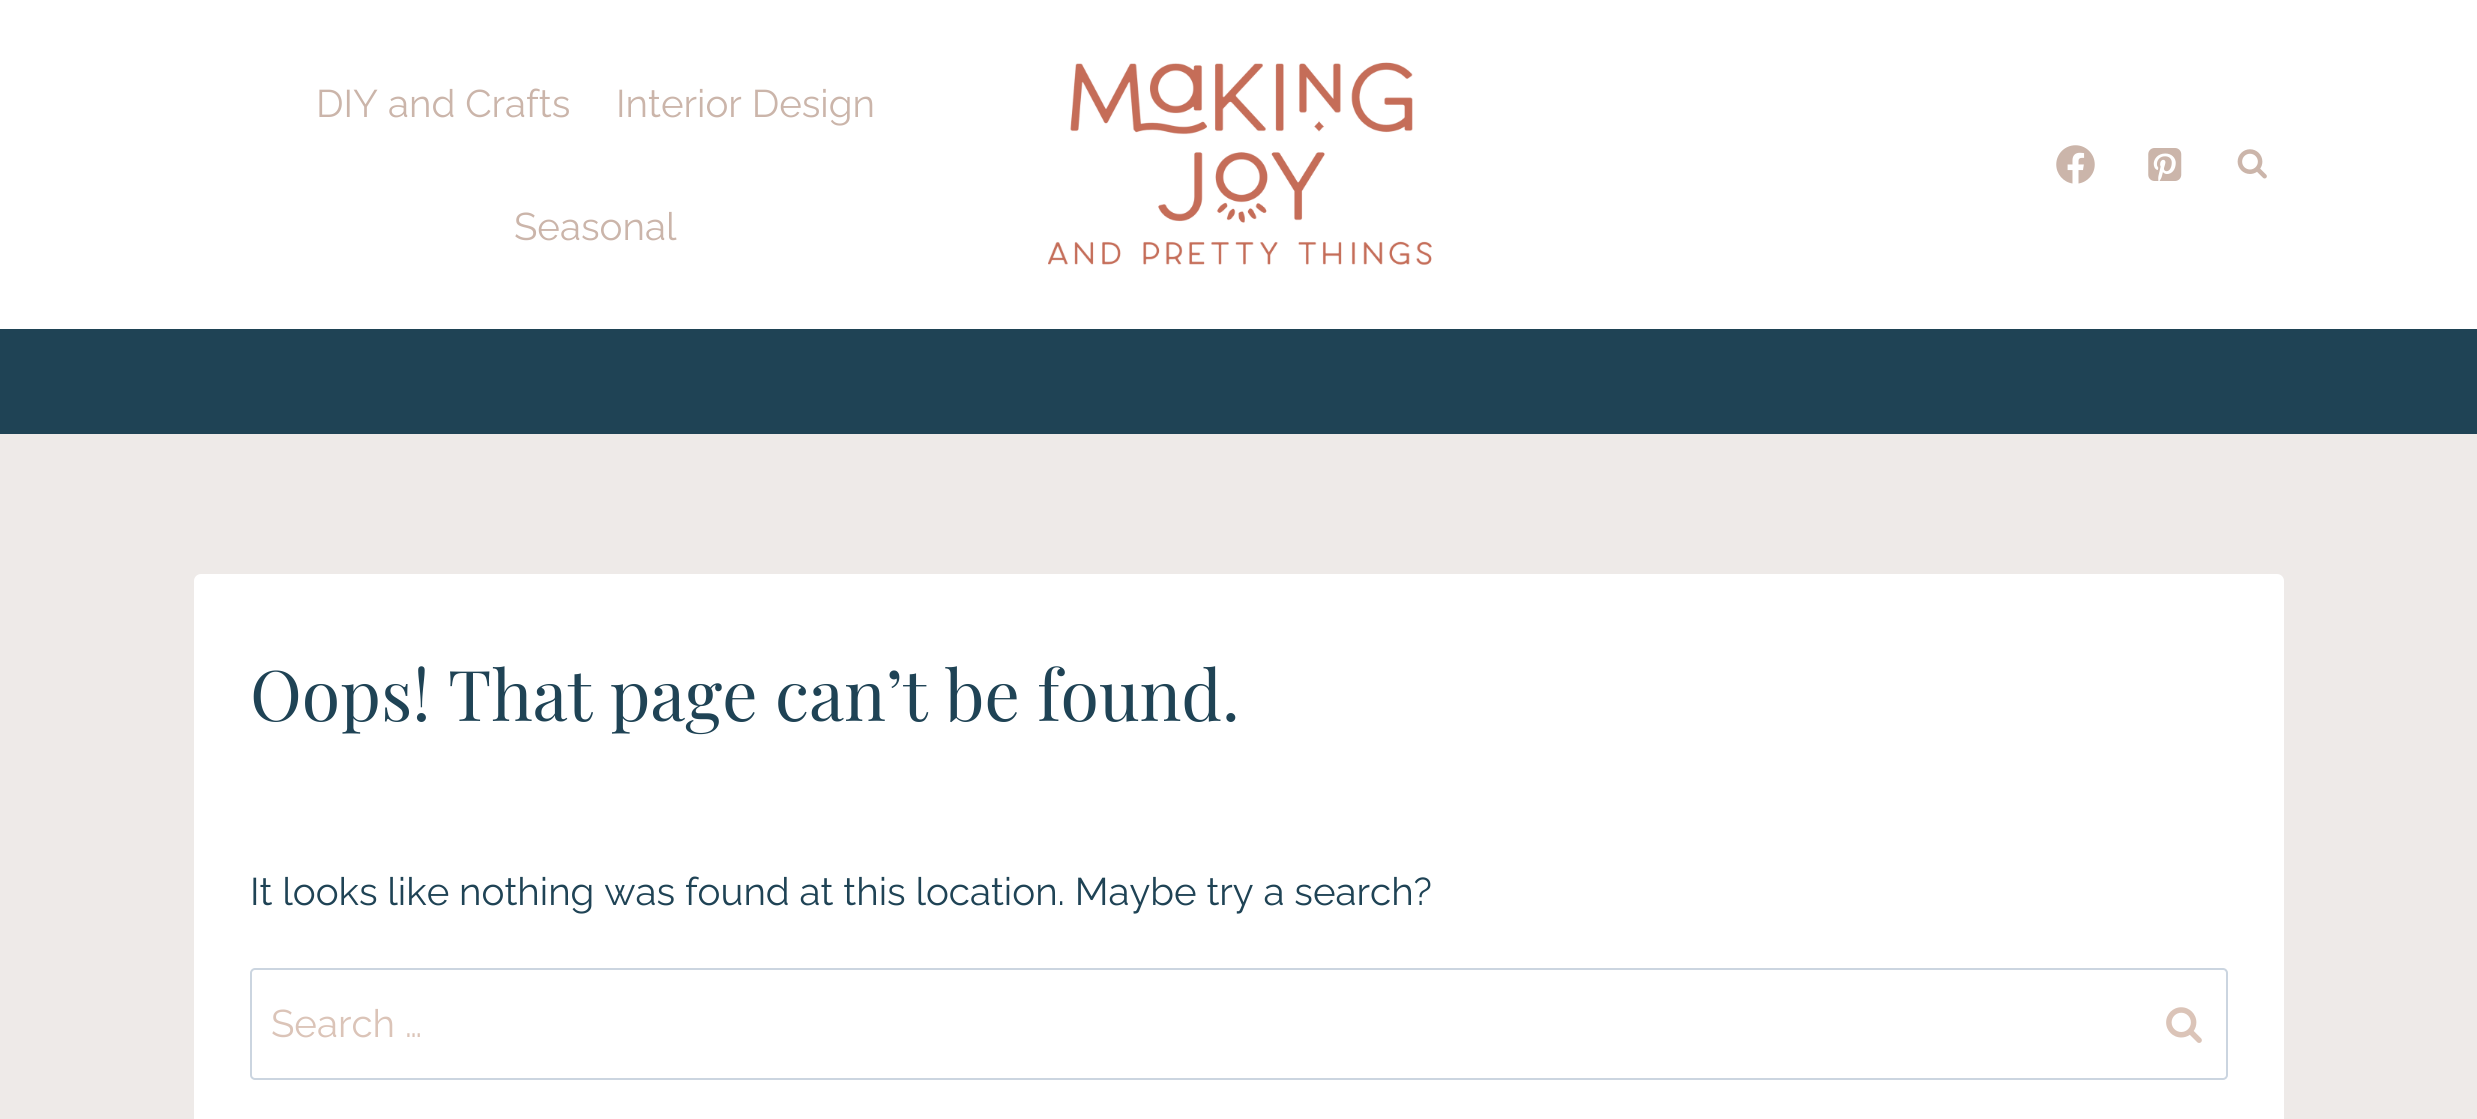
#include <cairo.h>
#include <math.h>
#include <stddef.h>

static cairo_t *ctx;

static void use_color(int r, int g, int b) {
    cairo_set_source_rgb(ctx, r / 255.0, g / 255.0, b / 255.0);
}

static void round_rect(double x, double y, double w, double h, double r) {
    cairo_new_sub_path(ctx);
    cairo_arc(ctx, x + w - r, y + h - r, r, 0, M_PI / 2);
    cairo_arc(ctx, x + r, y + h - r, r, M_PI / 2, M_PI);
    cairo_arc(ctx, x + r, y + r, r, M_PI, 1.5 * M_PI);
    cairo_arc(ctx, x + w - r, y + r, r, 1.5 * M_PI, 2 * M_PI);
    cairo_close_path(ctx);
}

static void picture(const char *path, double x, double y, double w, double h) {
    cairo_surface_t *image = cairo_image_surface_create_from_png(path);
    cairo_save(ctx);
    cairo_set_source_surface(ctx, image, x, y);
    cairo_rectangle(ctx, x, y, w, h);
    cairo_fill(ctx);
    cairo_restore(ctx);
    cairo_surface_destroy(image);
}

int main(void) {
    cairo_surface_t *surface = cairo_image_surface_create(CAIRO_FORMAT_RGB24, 2477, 1119);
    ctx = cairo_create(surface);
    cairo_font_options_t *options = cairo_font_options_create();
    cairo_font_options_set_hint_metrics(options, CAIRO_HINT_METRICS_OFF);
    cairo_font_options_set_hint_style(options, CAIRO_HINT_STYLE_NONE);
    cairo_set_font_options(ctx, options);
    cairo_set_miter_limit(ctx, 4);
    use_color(238, 234, 232);
    cairo_paint(ctx);
    use_color(255, 255, 255);
    cairo_rectangle(ctx, 0, 0, 2477, 329);
    cairo_fill(ctx);
    use_color(31, 67, 85);
    cairo_rectangle(ctx, 0, 329, 2477, 105);
    cairo_fill(ctx);
    cairo_select_font_face(ctx, "Raleway", CAIRO_FONT_SLANT_NORMAL, CAIRO_FONT_WEIGHT_NORMAL);
    cairo_set_font_size(ctx, 38.5);
    use_color(203, 181, 170);
    cairo_move_to(ctx, 316, 117);
    cairo_show_text(ctx, "DIY and Crafts");
    cairo_move_to(ctx, 616, 117);
    cairo_show_text(ctx, "Interior Design");
    cairo_move_to(ctx, 514, 240);
    cairo_show_text(ctx, "Seasonal");
    picture("img1.png", 1048, 62, 384, 203);
    picture("img2.png", 2056, 145, 39, 39);
    picture("img3.png", 2148, 148, 34, 33);
    picture("img4.png", 2237, 149, 30, 30);
    use_color(255, 255, 255);
    round_rect(194, 574, 2090, 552, 7);
    cairo_fill(ctx);
    cairo_select_font_face(ctx, "Playfair Display", CAIRO_FONT_SLANT_NORMAL, CAIRO_FONT_WEIGHT_NORMAL);
    cairo_set_font_size(ctx, 70);
    use_color(31, 67, 85);
    cairo_move_to(ctx, 250, 721);
    cairo_show_text(ctx, "Oops! That page can’t be found.");
    cairo_select_font_face(ctx, "Raleway", CAIRO_FONT_SLANT_NORMAL, CAIRO_FONT_WEIGHT_NORMAL);
    cairo_set_font_size(ctx, 38.5);
    cairo_move_to(ctx, 250, 905);
    cairo_show_text(ctx, "It looks like nothing was found at this location. Maybe try a search?");
    round_rect(251, 969, 1976, 110, 4);
    use_color(203, 213, 224);
    cairo_stroke(ctx);
    use_color(219, 196, 184);
    cairo_move_to(ctx, 271, 1037);
    cairo_show_text(ctx, "Search …");
    picture("img5.png", 2166, 1007, 36, 36);
    cairo_surface_write_to_png(surface, "result.png");
    cairo_font_options_destroy(options);
    cairo_destroy(ctx);
    cairo_surface_destroy(surface);
    return 0;
}
